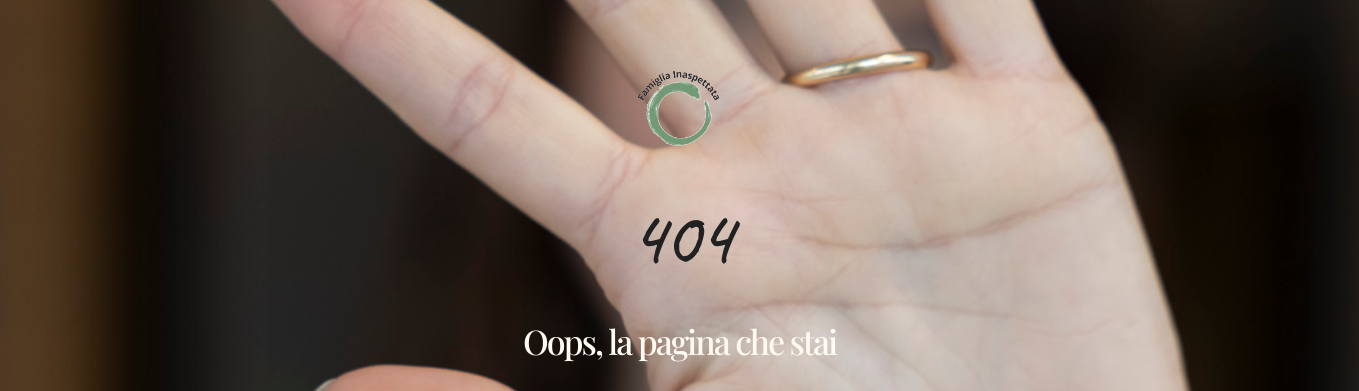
#include <cairo.h>
#include <math.h>
#include <stddef.h>

static cairo_t *ctx;

static void use_color(int r, int g, int b) {
    cairo_set_source_rgb(ctx, r / 255.0, g / 255.0, b / 255.0);
}

static void spaced_text(double x, double y, const char *s, double letter, double word) {
    cairo_move_to(ctx, x, y);
    while (*s) {
        char ch[5] = {0};
        int n = 0;
        do ch[n++] = *s++; while ((*s & 0xC0) == 0x80);
        cairo_show_text(ctx, ch);
        cairo_rel_move_to(ctx, letter + word * (*ch == ' '), 0);
    }
}

static void picture(const char *path, double x, double y, double w, double h) {
    cairo_surface_t *image = cairo_image_surface_create_from_png(path);
    cairo_save(ctx);
    cairo_set_source_surface(ctx, image, x, y);
    cairo_rectangle(ctx, x, y, w, h);
    cairo_fill(ctx);
    cairo_restore(ctx);
    cairo_surface_destroy(image);
}

int main(void) {
    cairo_surface_t *surface = cairo_image_surface_create(CAIRO_FORMAT_RGB24, 1359, 391);
    ctx = cairo_create(surface);
    cairo_font_options_t *options = cairo_font_options_create();
    cairo_font_options_set_hint_metrics(options, CAIRO_HINT_METRICS_OFF);
    cairo_font_options_set_hint_style(options, CAIRO_HINT_STYLE_NONE);
    cairo_set_font_options(ctx, options);
    cairo_set_miter_limit(ctx, 4);
    use_color(255, 255, 255);
    cairo_paint(ctx);
    picture("img1.png", 0, 0, 1359, 391);
    picture("img2.png", 637, 70, 83, 76);
    cairo_select_font_face(ctx, "Caveat Medium", CAIRO_FONT_SLANT_NORMAL, CAIRO_FONT_WEIGHT_NORMAL);
    cairo_set_font_size(ctx, 80);
    use_color(33, 33, 33);
    spaced_text(629, 263, "404", -2, 0);
    cairo_select_font_face(ctx, "Playfair Display Medium", CAIRO_FONT_SLANT_NORMAL, CAIRO_FONT_WEIGHT_NORMAL);
    cairo_set_font_size(ctx, 34);
    use_color(255, 250, 241);
    spaced_text(523, 355, "Oops, la pagina che stai", -2, 0);
    cairo_surface_write_to_png(surface, "result.png");
    cairo_font_options_destroy(options);
    cairo_destroy(ctx);
    cairo_surface_destroy(surface);
    return 0;
}
